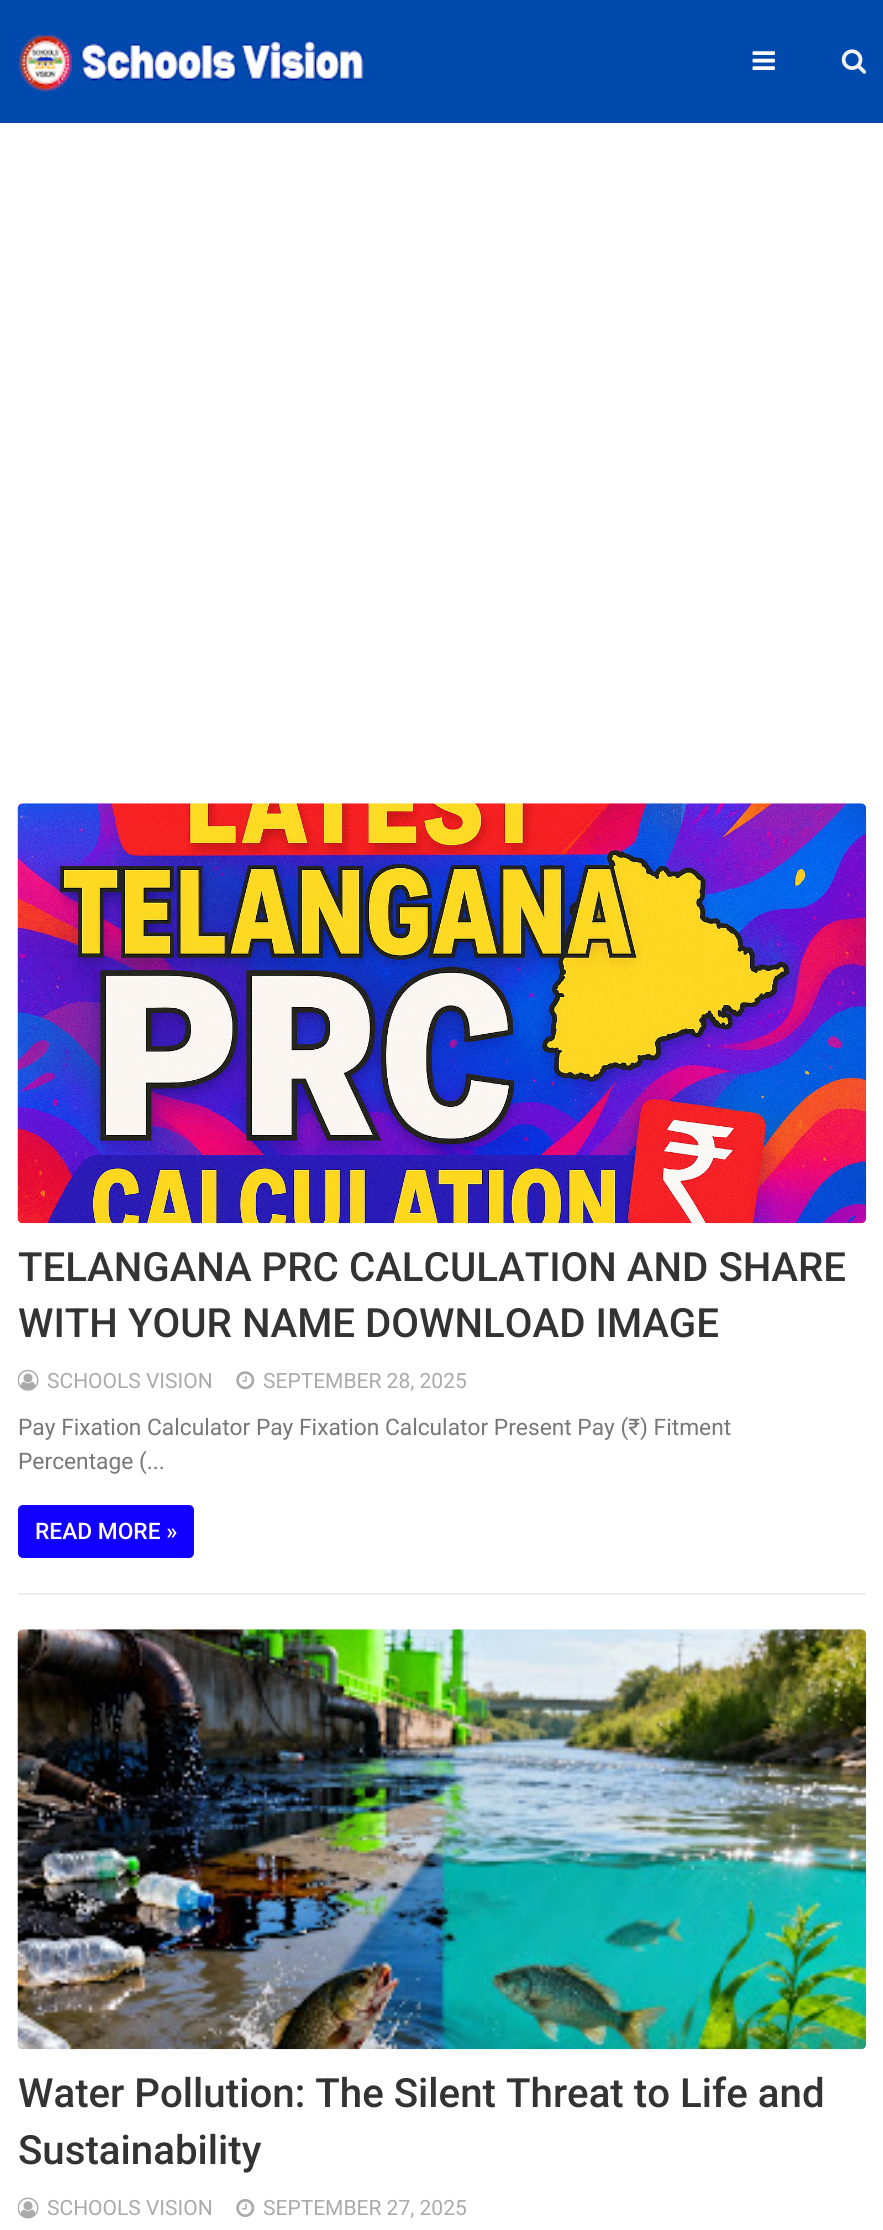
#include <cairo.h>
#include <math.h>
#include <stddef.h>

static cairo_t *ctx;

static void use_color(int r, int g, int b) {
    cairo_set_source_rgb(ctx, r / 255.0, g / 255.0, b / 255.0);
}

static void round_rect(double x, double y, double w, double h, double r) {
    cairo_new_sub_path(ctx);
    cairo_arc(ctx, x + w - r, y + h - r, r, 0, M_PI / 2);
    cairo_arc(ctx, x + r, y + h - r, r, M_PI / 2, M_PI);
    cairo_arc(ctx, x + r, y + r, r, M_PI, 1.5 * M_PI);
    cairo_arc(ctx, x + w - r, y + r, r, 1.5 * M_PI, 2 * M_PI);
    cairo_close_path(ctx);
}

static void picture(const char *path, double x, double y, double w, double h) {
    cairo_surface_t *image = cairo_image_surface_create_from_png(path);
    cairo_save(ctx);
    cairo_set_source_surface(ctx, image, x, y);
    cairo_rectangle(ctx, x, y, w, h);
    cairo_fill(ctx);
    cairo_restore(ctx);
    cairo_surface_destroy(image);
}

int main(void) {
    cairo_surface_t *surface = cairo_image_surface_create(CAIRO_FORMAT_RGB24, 883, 2230);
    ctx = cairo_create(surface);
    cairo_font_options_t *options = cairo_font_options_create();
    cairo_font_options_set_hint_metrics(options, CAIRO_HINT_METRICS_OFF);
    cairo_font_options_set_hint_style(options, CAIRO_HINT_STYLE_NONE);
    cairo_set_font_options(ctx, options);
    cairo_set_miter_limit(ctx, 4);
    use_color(255, 255, 255);
    cairo_paint(ctx);
    use_color(0, 74, 173);
    cairo_rectangle(ctx, 0, 0, 883, 123);
    cairo_fill(ctx);
    picture("img1.png", 18, 33, 346, 60);
    picture("img2.png", 752, 51, 23, 19);
    picture("img3.png", 841, 49, 26, 25);
    use_color(238, 238, 238);
    cairo_rectangle(ctx, 18, 1593, 848, 2);
    cairo_fill(ctx);
    picture("img4.png", 17, 803, 850, 421);
    cairo_select_font_face(ctx, "Roboto Medium", CAIRO_FONT_SLANT_NORMAL, CAIRO_FONT_WEIGHT_NORMAL);
    cairo_set_font_size(ctx, 40.25);
    use_color(51, 51, 51);
    cairo_move_to(ctx, 18, 1281);
    cairo_show_text(ctx, "TELANGANA PRC CALCULATION AND SHARE");
    cairo_move_to(ctx, 18, 1337);
    cairo_show_text(ctx, "WITH YOUR NAME DOWNLOAD IMAGE");
    picture("img5.png", 18, 1369, 21, 22);
    cairo_select_font_face(ctx, "Roboto", CAIRO_FONT_SLANT_NORMAL, CAIRO_FONT_WEIGHT_NORMAL);
    cairo_set_font_size(ctx, 21);
    use_color(170, 170, 170);
    cairo_move_to(ctx, 47, 1388);
    cairo_show_text(ctx, "SCHOOLS VISION");
    picture("img6.png", 236, 1371, 19, 19);
    cairo_move_to(ctx, 263, 1388);
    cairo_show_text(ctx, "SEPTEMBER 28, 2025");
    cairo_set_font_size(ctx, 22.75);
    use_color(119, 119, 119);
    cairo_move_to(ctx, 18, 1435);
    cairo_show_text(ctx, "Pay Fixation Calculator Pay Fixation Calculator Present Pay (₹) Fitment");
    cairo_move_to(ctx, 18, 1469);
    cairo_show_text(ctx, "Percentage (...");
    use_color(17, 0, 255);
    round_rect(18, 1505, 176, 53, 5);
    cairo_fill(ctx);
    cairo_select_font_face(ctx, "Roboto Medium", CAIRO_FONT_SLANT_NORMAL, CAIRO_FONT_WEIGHT_NORMAL);
    use_color(255, 255, 255);
    cairo_move_to(ctx, 35, 1539);
    cairo_show_text(ctx, "READ MORE »");
    picture("img7.png", 17, 1629, 850, 421);
    cairo_set_font_size(ctx, 40.25);
    use_color(51, 51, 51);
    cairo_move_to(ctx, 18, 2107);
    cairo_show_text(ctx, "Water Pollution: The Silent Threat to Life and");
    cairo_move_to(ctx, 18, 2164);
    cairo_show_text(ctx, "Sustainability");
    picture("img8.png", 18, 2197, 21, 22);
    cairo_select_font_face(ctx, "Roboto", CAIRO_FONT_SLANT_NORMAL, CAIRO_FONT_WEIGHT_NORMAL);
    cairo_set_font_size(ctx, 21);
    use_color(170, 170, 170);
    cairo_move_to(ctx, 47, 2215);
    cairo_show_text(ctx, "SCHOOLS VISION");
    picture("img9.png", 236, 2199, 19, 18);
    cairo_move_to(ctx, 263, 2215);
    cairo_show_text(ctx, "SEPTEMBER 27, 2025");
    cairo_surface_write_to_png(surface, "result.png");
    cairo_font_options_destroy(options);
    cairo_destroy(ctx);
    cairo_surface_destroy(surface);
    return 0;
}
